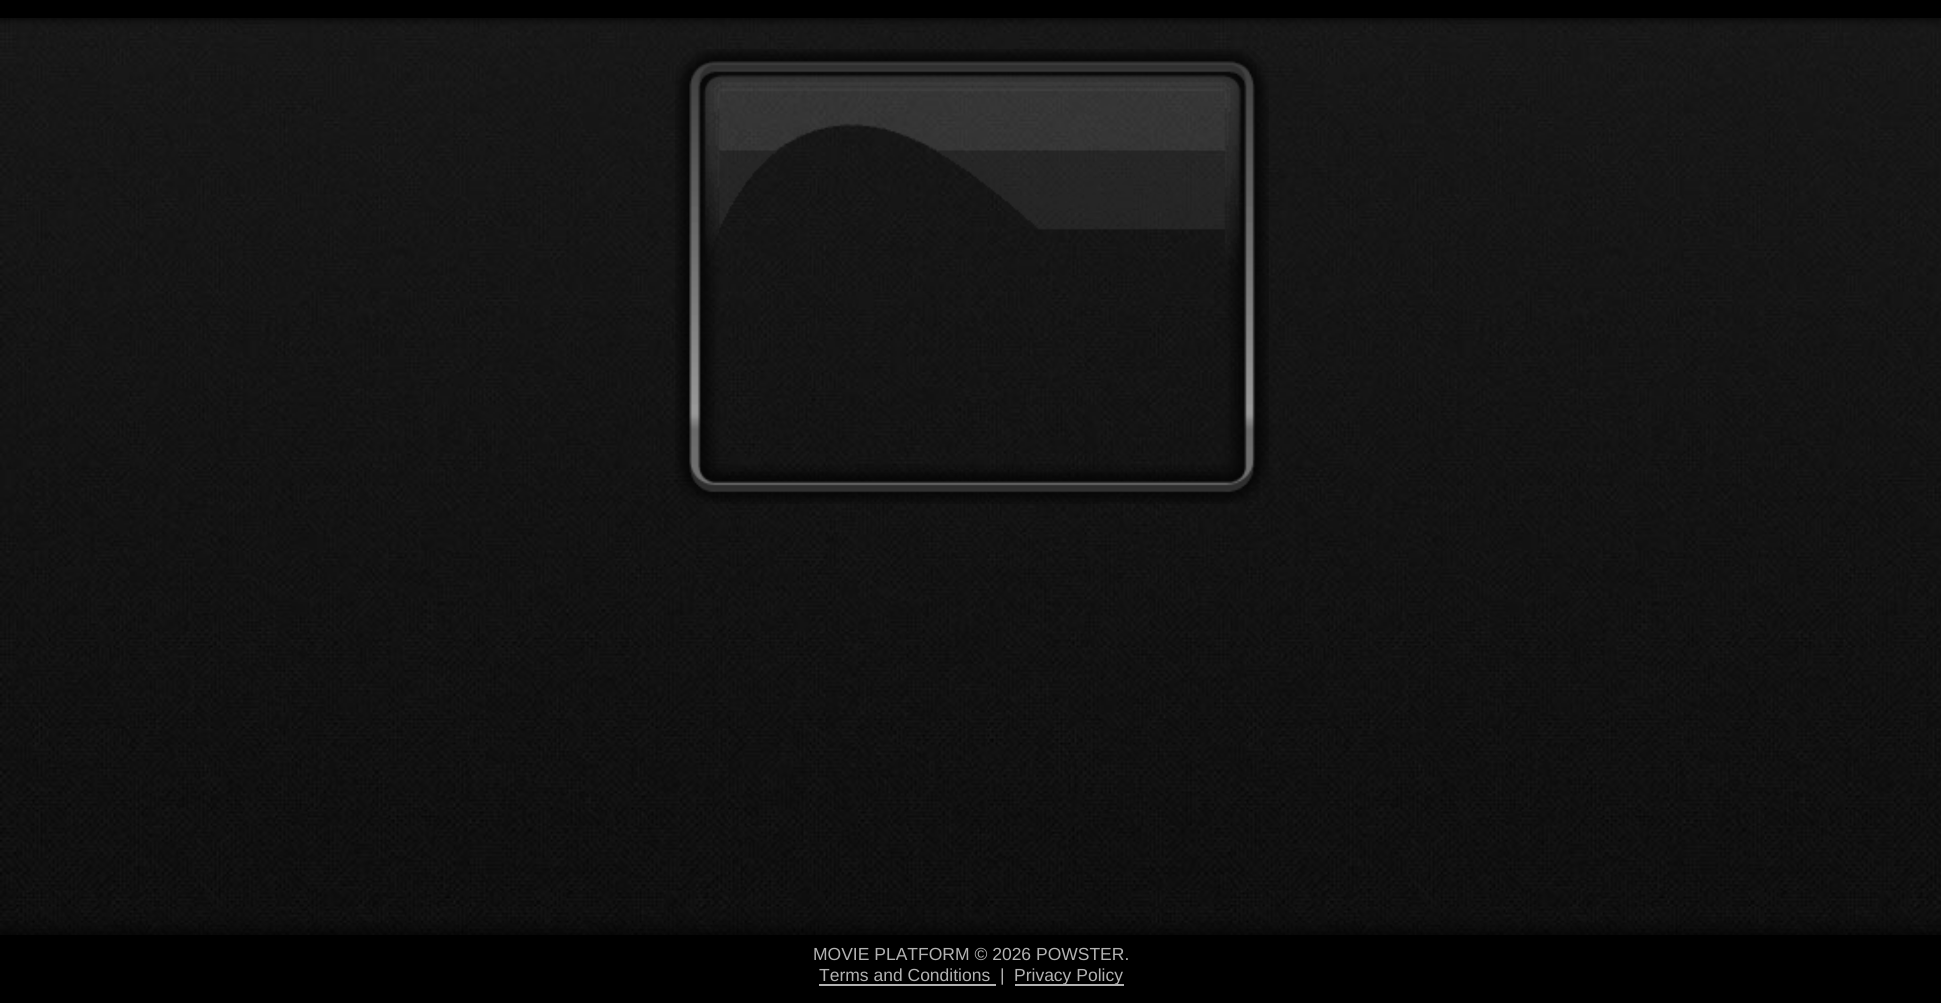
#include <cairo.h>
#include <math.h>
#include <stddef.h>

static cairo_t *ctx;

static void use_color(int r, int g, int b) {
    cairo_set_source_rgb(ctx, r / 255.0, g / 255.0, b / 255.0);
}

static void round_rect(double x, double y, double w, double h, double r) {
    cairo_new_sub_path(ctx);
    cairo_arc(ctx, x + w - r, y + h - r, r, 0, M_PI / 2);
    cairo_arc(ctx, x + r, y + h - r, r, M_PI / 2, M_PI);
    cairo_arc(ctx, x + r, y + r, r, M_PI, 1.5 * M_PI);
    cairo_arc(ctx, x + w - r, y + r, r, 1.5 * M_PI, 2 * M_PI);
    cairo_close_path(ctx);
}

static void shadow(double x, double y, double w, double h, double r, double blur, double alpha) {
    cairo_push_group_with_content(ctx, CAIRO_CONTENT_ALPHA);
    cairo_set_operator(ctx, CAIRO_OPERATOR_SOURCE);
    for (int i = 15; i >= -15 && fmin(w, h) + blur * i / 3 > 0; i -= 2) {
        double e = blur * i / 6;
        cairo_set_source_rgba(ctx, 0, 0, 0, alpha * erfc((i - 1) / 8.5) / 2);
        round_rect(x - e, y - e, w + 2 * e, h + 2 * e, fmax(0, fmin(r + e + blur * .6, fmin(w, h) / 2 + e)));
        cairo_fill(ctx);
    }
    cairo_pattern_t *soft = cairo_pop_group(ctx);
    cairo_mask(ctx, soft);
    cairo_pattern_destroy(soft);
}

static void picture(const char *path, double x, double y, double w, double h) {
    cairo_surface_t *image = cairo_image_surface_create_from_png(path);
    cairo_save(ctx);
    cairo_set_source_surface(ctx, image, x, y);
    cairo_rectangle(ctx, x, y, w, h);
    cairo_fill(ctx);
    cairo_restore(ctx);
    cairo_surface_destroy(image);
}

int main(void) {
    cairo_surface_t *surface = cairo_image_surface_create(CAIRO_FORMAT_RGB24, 1941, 1003);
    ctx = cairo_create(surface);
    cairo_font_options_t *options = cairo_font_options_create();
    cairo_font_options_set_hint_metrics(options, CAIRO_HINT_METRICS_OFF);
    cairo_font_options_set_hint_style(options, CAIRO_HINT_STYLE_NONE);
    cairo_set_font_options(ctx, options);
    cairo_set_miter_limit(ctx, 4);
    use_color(255, 255, 255);
    cairo_paint(ctx);
    picture("img1.png", 0, 18, 1941, 917);
    use_color(0, 0, 0);
    shadow(0, 2, 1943, 17, 0, 4.5, 0.8);
    use_color(0, 0, 0);
    cairo_rectangle(ctx, 0, 0, 1941, 18);
    cairo_fill(ctx);
    picture("img2.png", 675, 49, 594, 455);
    use_color(0, 0, 0);
    shadow(0, 933, 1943, 70, 0, 9, 0.8);
    use_color(0, 0, 0);
    cairo_rectangle(ctx, 0, 935, 1941, 68);
    cairo_fill(ctx);
    cairo_select_font_face(ctx, "Liberation Sans", CAIRO_FONT_SLANT_NORMAL, CAIRO_FONT_WEIGHT_NORMAL);
    cairo_set_font_size(ctx, 17.5);
    use_color(178, 178, 178);
    cairo_move_to(ctx, 813, 960);
    cairo_show_text(ctx, "MOVIE PLATFORM © 2026 POWSTER.");
    cairo_move_to(ctx, 819, 981);
    cairo_show_text(ctx, "Terms and Conditions");
    cairo_rectangle(ctx, 819, 984, 177, 2);
    cairo_fill(ctx);
    cairo_move_to(ctx, 1000, 981);
    cairo_show_text(ctx, "|");
    cairo_rectangle(ctx, 1015, 984, 109, 2);
    cairo_fill(ctx);
    cairo_move_to(ctx, 1014, 981);
    cairo_show_text(ctx, "Privacy Policy");
    cairo_surface_write_to_png(surface, "result.png");
    cairo_font_options_destroy(options);
    cairo_destroy(ctx);
    cairo_surface_destroy(surface);
    return 0;
}
